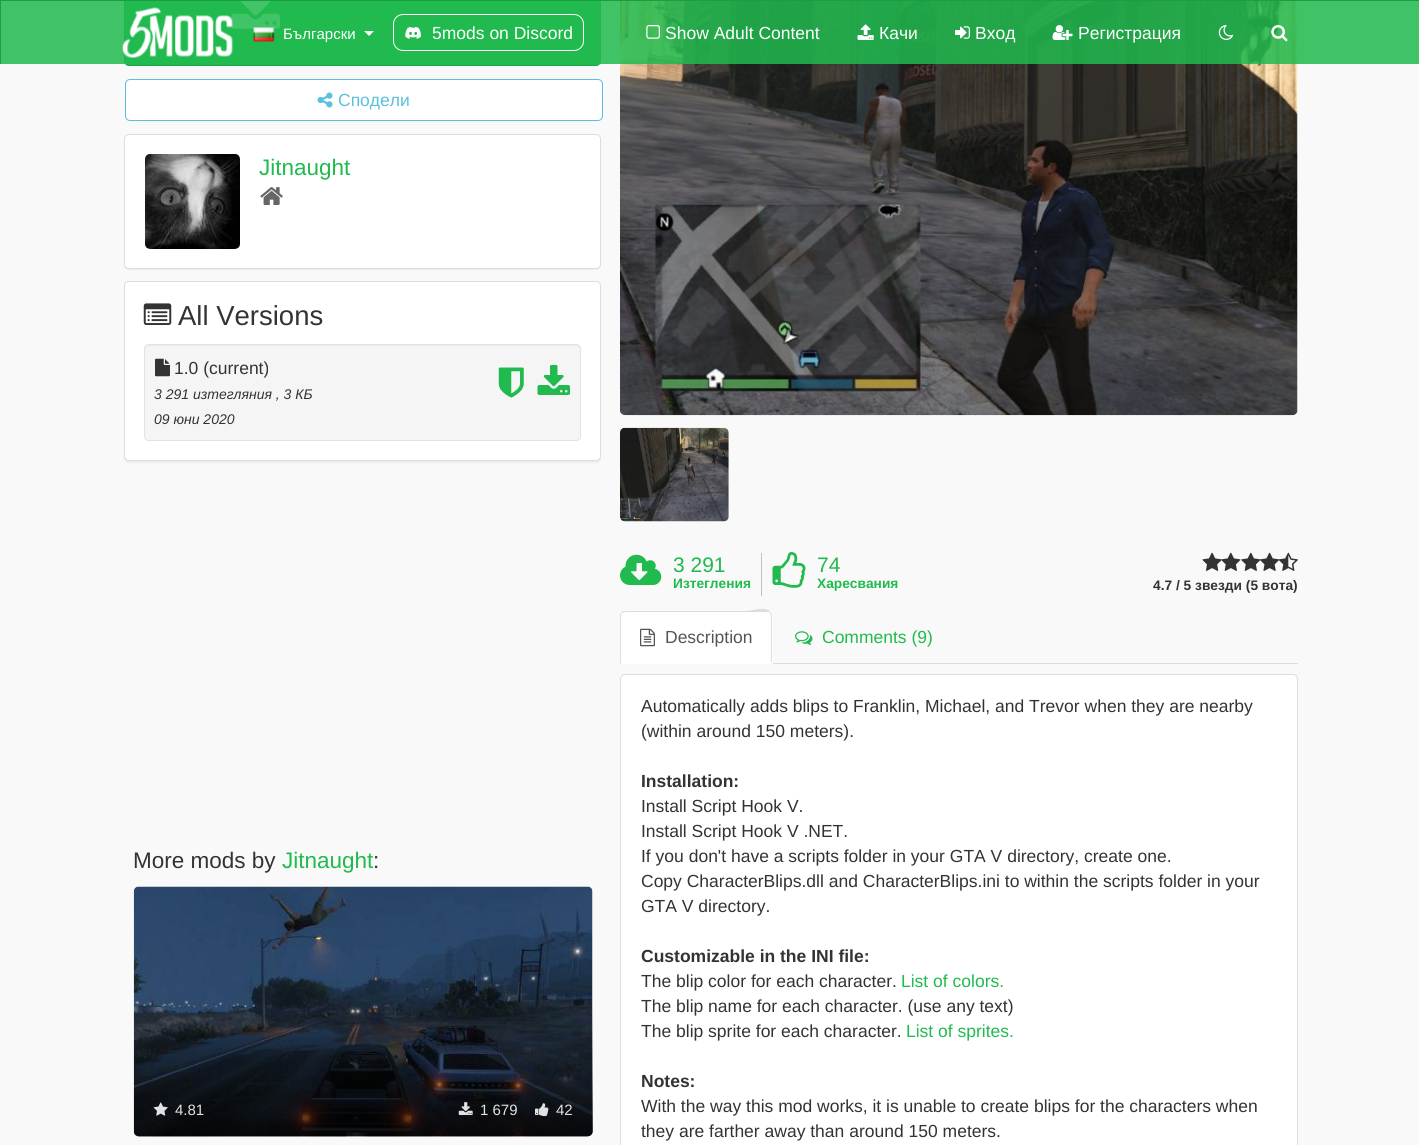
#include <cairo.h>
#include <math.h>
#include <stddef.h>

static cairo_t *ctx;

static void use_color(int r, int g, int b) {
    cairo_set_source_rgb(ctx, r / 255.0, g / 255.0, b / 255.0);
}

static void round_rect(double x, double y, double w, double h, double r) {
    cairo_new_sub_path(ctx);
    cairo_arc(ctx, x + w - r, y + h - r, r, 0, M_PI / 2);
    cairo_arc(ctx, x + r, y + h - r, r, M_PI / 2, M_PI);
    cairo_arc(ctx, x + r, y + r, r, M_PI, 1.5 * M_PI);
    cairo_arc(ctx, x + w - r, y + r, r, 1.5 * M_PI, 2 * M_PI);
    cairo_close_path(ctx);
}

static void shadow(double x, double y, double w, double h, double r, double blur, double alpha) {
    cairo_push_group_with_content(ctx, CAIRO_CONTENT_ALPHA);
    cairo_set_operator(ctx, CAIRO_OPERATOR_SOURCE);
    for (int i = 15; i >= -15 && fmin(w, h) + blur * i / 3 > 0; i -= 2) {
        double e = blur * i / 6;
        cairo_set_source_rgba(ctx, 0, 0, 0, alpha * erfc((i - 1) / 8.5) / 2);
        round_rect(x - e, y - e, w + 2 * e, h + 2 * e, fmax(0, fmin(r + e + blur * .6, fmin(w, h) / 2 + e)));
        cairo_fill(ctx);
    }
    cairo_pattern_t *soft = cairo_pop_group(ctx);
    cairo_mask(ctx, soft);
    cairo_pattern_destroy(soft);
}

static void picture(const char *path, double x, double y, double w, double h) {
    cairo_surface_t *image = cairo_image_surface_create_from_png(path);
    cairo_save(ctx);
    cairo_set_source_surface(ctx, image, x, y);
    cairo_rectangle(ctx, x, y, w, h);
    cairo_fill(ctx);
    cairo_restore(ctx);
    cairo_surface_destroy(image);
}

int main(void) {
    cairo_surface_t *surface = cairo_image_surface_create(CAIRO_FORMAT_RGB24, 1419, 1145);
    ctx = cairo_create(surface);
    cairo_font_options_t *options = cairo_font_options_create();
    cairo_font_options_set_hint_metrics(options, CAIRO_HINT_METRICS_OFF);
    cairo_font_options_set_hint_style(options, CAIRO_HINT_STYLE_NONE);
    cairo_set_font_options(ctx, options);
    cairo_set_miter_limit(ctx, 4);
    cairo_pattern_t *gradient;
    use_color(249, 249, 249);
    cairo_paint(ctx);
    use_color(32, 186, 78);
    round_rect(124.5, -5.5, 476, 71, 4.5);
    cairo_fill_preserve(ctx);
    use_color(28, 164, 69);
    cairo_set_line_width(ctx, 1);
    cairo_stroke(ctx);
    picture("img10.png", 231, 1, 49, 28);
    picture("img22.png", 620, 1, 678, 415);
    cairo_set_source_rgba(ctx, 0.125, 0.729, 0.306, 0.85);
    cairo_rectangle(ctx, 1, 1, 1418, 63);
    cairo_fill(ctx);
    use_color(27, 158, 66);
    cairo_rectangle(ctx, 0, 0, 1419, 1);
    cairo_fill(ctx);
    cairo_rectangle(ctx, 0, 0, 1, 64);
    cairo_fill(ctx);
    picture("img1.png", 122, 7, 112, 51);
    picture("img2.png", 253, 27, 22, 15);
    cairo_select_font_face(ctx, "Liberation Sans", CAIRO_FONT_SLANT_NORMAL, CAIRO_FONT_WEIGHT_NORMAL);
    cairo_set_font_size(ctx, 15);
    use_color(255, 255, 255);
    cairo_move_to(ctx, 283, 39);
    cairo_show_text(ctx, "Български");
    cairo_new_path(ctx);
    cairo_move_to(ctx, 364, 31);
    cairo_line_to(ctx, 374, 31);
    cairo_line_to(ctx, 369, 36);
    cairo_close_path(ctx);
    cairo_fill(ctx);
    round_rect(393.5, 14.5, 190, 36, 9.5);
    cairo_stroke(ctx);
    picture("img3.png", 405, 26, 16, 13);
    cairo_set_font_size(ctx, 17.5);
    cairo_move_to(ctx, 432, 39);
    cairo_show_text(ctx, "5mods on Discord");
    picture("img4.png", 646, 25, 14, 14);
    cairo_move_to(ctx, 665, 39);
    cairo_show_text(ctx, "Show Adult Content");
    picture("img5.png", 857, 24, 17, 16);
    cairo_move_to(ctx, 879, 39);
    cairo_show_text(ctx, "Качи");
    picture("img6.png", 955, 26, 15, 13);
    cairo_move_to(ctx, 975, 39);
    cairo_show_text(ctx, "Вход");
    picture("img7.png", 1052, 25, 21, 15);
    cairo_move_to(ctx, 1078, 39);
    cairo_show_text(ctx, "Регистрация");
    picture("img8.png", 1218, 25, 16, 15);
    picture("img9.png", 1271, 25, 17, 17);
    round_rect(125.5, 79.5, 477, 41, 4.5);
    cairo_fill_preserve(ctx);
    use_color(91, 192, 222);
    cairo_stroke(ctx);
    picture("img11.png", 317, 92, 16, 16);
    cairo_move_to(ctx, 338, 106);
    cairo_show_text(ctx, "Сподели");
    use_color(0, 0, 0);
    shadow(124, 135, 477, 135, 5, 0.5, 0.05);
    use_color(255, 255, 255);
    round_rect(124.5, 134.5, 476, 134, 4.5);
    cairo_fill_preserve(ctx);
    use_color(221, 221, 221);
    cairo_stroke(ctx);
    picture("img12.png", 145, 154, 95, 95);
    cairo_set_font_size(ctx, 22.5);
    use_color(32, 186, 78);
    cairo_move_to(ctx, 259, 175);
    cairo_show_text(ctx, "Jitnaught");
    picture("img13.png", 260, 187, 23, 18);
    use_color(0, 0, 0);
    shadow(124, 283, 477, 180, 5, 0.5, 0.05);
    use_color(255, 255, 255);
    round_rect(124.5, 281.5, 476, 179, 4.5);
    cairo_fill_preserve(ctx);
    use_color(221, 221, 221);
    cairo_stroke(ctx);
    picture("img14.png", 143, 303, 29, 22);
    cairo_set_font_size(ctx, 27.5);
    use_color(51, 51, 51);
    cairo_move_to(ctx, 178, 325);
    cairo_show_text(ctx, "All Versions");
    use_color(245, 245, 245);
    round_rect(144, 344, 437, 97, 5);
    cairo_fill(ctx);
    use_color(233, 233, 233);
    cairo_new_path(ctx);
    cairo_move_to(ctx, 149, 346);
    cairo_line_to(ctx, 576, 346);
    cairo_curve_to(ctx, 578, 346, 580, 348, 580, 350);
    cairo_curve_to(ctx, 580, 347, 579, 345, 576, 345);
    cairo_line_to(ctx, 149, 345);
    cairo_line_to(ctx, 147, 346);
    cairo_line_to(ctx, 146, 347);
    cairo_line_to(ctx, 145, 350);
    cairo_curve_to(ctx, 145, 348, 147, 346, 149, 346);
    cairo_close_path(ctx);
    cairo_fill(ctx);
    round_rect(144.5, 344.5, 436, 96, 4.5);
    use_color(227, 227, 227);
    cairo_stroke(ctx);
    picture("img15.png", 155, 358, 15, 19);
    cairo_set_font_size(ctx, 17.5);
    use_color(51, 51, 51);
    cairo_move_to(ctx, 174, 374);
    cairo_show_text(ctx, "1.0 (current)");
    cairo_select_font_face(ctx, "Liberation Sans", CAIRO_FONT_SLANT_ITALIC, CAIRO_FONT_WEIGHT_NORMAL);
    cairo_set_font_size(ctx, 14);
    cairo_move_to(ctx, 154, 399);
    cairo_show_text(ctx, "3 291 изтегляния , 3 КБ");
    cairo_move_to(ctx, 154, 424);
    cairo_show_text(ctx, "09 юни 2020");
    picture("img16.png", 498, 367, 26, 31);
    picture("img17.png", 537, 365, 33, 30);
    cairo_select_font_face(ctx, "Liberation Sans", CAIRO_FONT_SLANT_NORMAL, CAIRO_FONT_WEIGHT_NORMAL);
    cairo_set_font_size(ctx, 22.5);
    cairo_move_to(ctx, 133, 868);
    cairo_show_text(ctx, "More mods by");
    use_color(32, 186, 78);
    cairo_move_to(ctx, 282, 868);
    cairo_show_text(ctx, "Jitnaught");
    use_color(51, 51, 51);
    cairo_move_to(ctx, 373, 868);
    cairo_show_text(ctx, ":");
    picture("img18.png", 133, 886, 460, 251);
    gradient = cairo_pattern_create_linear(363, 886, 363, 1136);
    cairo_pattern_add_color_stop_rgba(gradient, 0.5, 0, 0, 0, 0);
    cairo_pattern_add_color_stop_rgba(gradient, 0.75, 0, 0, 0, 0.25);
    cairo_pattern_add_color_stop_rgba(gradient, 1, 0, 0, 0, 0.75);
    cairo_set_source(ctx, gradient);
    cairo_pattern_destroy(gradient);
    round_rect(134, 886, 459, 250, 5);
    cairo_fill(ctx);
    picture("img19.png", 153, 1102, 15, 14);
    cairo_set_font_size(ctx, 15);
    use_color(226, 226, 226);
    cairo_move_to(ctx, 175, 1115);
    cairo_show_text(ctx, "4.81");
    picture("img20.png", 458, 1102, 15, 13);
    cairo_move_to(ctx, 480, 1115);
    cairo_show_text(ctx, "1 679");
    picture("img21.png", 535, 1103, 14, 14);
    cairo_move_to(ctx, 556, 1115);
    cairo_show_text(ctx, "42");
    picture("img23.png", 620, 427, 109, 95);
    picture("img24.png", 620, 554, 42, 31);
    use_color(194, 194, 194);
    cairo_rectangle(ctx, 761, 553, 1, 43);
    cairo_fill(ctx);
    cairo_set_font_size(ctx, 21);
    use_color(32, 186, 78);
    cairo_move_to(ctx, 673, 572);
    cairo_show_text(ctx, "3 291");
    cairo_select_font_face(ctx, "Liberation Sans", CAIRO_FONT_SLANT_NORMAL, CAIRO_FONT_WEIGHT_BOLD);
    cairo_set_font_size(ctx, 13.75);
    cairo_move_to(ctx, 673, 588);
    cairo_show_text(ctx, "Изтегления");
    picture("img25.png", 772, 552, 34, 36);
    cairo_select_font_face(ctx, "Liberation Sans", CAIRO_FONT_SLANT_NORMAL, CAIRO_FONT_WEIGHT_NORMAL);
    cairo_set_font_size(ctx, 21);
    cairo_move_to(ctx, 817, 572);
    cairo_show_text(ctx, "74");
    cairo_select_font_face(ctx, "Liberation Sans", CAIRO_FONT_SLANT_NORMAL, CAIRO_FONT_WEIGHT_BOLD);
    cairo_set_font_size(ctx, 13.75);
    cairo_move_to(ctx, 817, 588);
    cairo_show_text(ctx, "Харесвания");
    picture("img26.png", 1202, 552, 20, 19);
    picture("img27.png", 1221, 552, 20, 19);
    picture("img28.png", 1241, 552, 20, 19);
    picture("img29.png", 1260, 552, 20, 19);
    picture("img30.png", 1278, 552, 20, 19);
    use_color(51, 51, 51);
    cairo_move_to(ctx, 1153, 590);
    cairo_show_text(ctx, "4.7 / 5 звезди (5 вота)");
    use_color(221, 221, 221);
    cairo_rectangle(ctx, 773, 663, 525, 1);
    cairo_fill(ctx);
    use_color(255, 255, 255);
    cairo_new_path(ctx);
    cairo_move_to(ctx, 625, 611);
    cairo_line_to(ctx, 768, 611);
    cairo_curve_to(ctx, 771, 611, 773, 613, 773, 616);
    cairo_line_to(ctx, 773, 664);
    cairo_line_to(ctx, 620, 664);
    cairo_line_to(ctx, 620, 616);
    cairo_curve_to(ctx, 620, 613, 622, 611, 625, 611);
    cairo_close_path(ctx);
    cairo_fill(ctx);
    use_color(221, 221, 221);
    cairo_new_path(ctx);
    cairo_move_to(ctx, 625, 612);
    cairo_line_to(ctx, 622, 613);
    cairo_line_to(ctx, 621, 613);
    cairo_line_to(ctx, 623, 611);
    cairo_line_to(ctx, 745, 611);
    cairo_curve_to(ctx, 754, 611, 766, 605, 771, 613);
    cairo_line_to(ctx, 770, 613);
    cairo_curve_to(ctx, 770, 613, 769, 612, 768, 612);
    cairo_close_path(ctx);
    cairo_fill(ctx);
    cairo_new_path(ctx);
    cairo_move_to(ctx, 771, 613);
    cairo_curve_to(ctx, 772, 614, 772, 615, 772, 616);
    cairo_line_to(ctx, 772, 663);
    cairo_line_to(ctx, 771, 662);
    cairo_line_to(ctx, 771, 616);
    cairo_line_to(ctx, 770, 613);
    cairo_close_path(ctx);
    cairo_fill(ctx);
    cairo_new_path(ctx);
    cairo_move_to(ctx, 620, 664);
    cairo_line_to(ctx, 622, 662);
    cairo_line_to(ctx, 621, 662);
    cairo_line_to(ctx, 621, 616);
    cairo_curve_to(ctx, 621, 615, 621, 614, 622, 613);
    cairo_line_to(ctx, 621, 613);
    cairo_curve_to(ctx, 620, 613, 620, 615, 620, 616);
    cairo_close_path(ctx);
    cairo_fill(ctx);
    picture("img31.png", 640, 628, 15, 19);
    cairo_select_font_face(ctx, "Liberation Sans", CAIRO_FONT_SLANT_NORMAL, CAIRO_FONT_WEIGHT_NORMAL);
    cairo_set_font_size(ctx, 17.5);
    use_color(85, 85, 85);
    cairo_move_to(ctx, 665, 643);
    cairo_show_text(ctx, "Description");
    picture("img32.png", 795, 631, 18, 14);
    use_color(32, 186, 78);
    cairo_move_to(ctx, 822, 643);
    cairo_show_text(ctx, "Comments (9)");
    use_color(255, 255, 255);
    round_rect(620.5, 674.5, 677, 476, 4.5);
    cairo_fill_preserve(ctx);
    use_color(221, 221, 221);
    cairo_stroke(ctx);
    use_color(51, 51, 51);
    cairo_move_to(ctx, 641, 712);
    cairo_show_text(ctx, "Automatically adds blips to Franklin, Michael, and Trevor when they are nearby");
    cairo_move_to(ctx, 641, 737);
    cairo_show_text(ctx, "(within around 150 meters).");
    cairo_select_font_face(ctx, "Liberation Sans", CAIRO_FONT_SLANT_NORMAL, CAIRO_FONT_WEIGHT_BOLD);
    cairo_move_to(ctx, 641, 787);
    cairo_show_text(ctx, "Installation:");
    cairo_select_font_face(ctx, "Liberation Sans", CAIRO_FONT_SLANT_NORMAL, CAIRO_FONT_WEIGHT_NORMAL);
    cairo_move_to(ctx, 641, 812);
    cairo_show_text(ctx, "Install Script Hook V.");
    cairo_move_to(ctx, 641, 837);
    cairo_show_text(ctx, "Install Script Hook V .NET.");
    cairo_move_to(ctx, 641, 862);
    cairo_show_text(ctx, "If you don't have a scripts folder in your GTA V directory, create one.");
    cairo_move_to(ctx, 641, 887);
    cairo_show_text(ctx, "Copy CharacterBlips.dll and CharacterBlips.ini to within the scripts folder in your");
    cairo_move_to(ctx, 641, 912);
    cairo_show_text(ctx, "GTA V directory.");
    cairo_select_font_face(ctx, "Liberation Sans", CAIRO_FONT_SLANT_NORMAL, CAIRO_FONT_WEIGHT_BOLD);
    cairo_move_to(ctx, 641, 962);
    cairo_show_text(ctx, "Customizable in the INI file:");
    cairo_select_font_face(ctx, "Liberation Sans", CAIRO_FONT_SLANT_NORMAL, CAIRO_FONT_WEIGHT_NORMAL);
    cairo_move_to(ctx, 641, 987);
    cairo_show_text(ctx, "The blip color for each character.");
    use_color(32, 186, 78);
    cairo_move_to(ctx, 901, 987);
    cairo_show_text(ctx, "List of colors.");
    use_color(51, 51, 51);
    cairo_move_to(ctx, 641, 1012);
    cairo_show_text(ctx, "The blip name for each character. (use any text)");
    cairo_move_to(ctx, 641, 1037);
    cairo_show_text(ctx, "The blip sprite for each character.");
    use_color(32, 186, 78);
    cairo_move_to(ctx, 906, 1037);
    cairo_show_text(ctx, "List of sprites.");
    cairo_select_font_face(ctx, "Liberation Sans", CAIRO_FONT_SLANT_NORMAL, CAIRO_FONT_WEIGHT_BOLD);
    use_color(51, 51, 51);
    cairo_move_to(ctx, 641, 1087);
    cairo_show_text(ctx, "Notes:");
    cairo_select_font_face(ctx, "Liberation Sans", CAIRO_FONT_SLANT_NORMAL, CAIRO_FONT_WEIGHT_NORMAL);
    cairo_move_to(ctx, 641, 1112);
    cairo_show_text(ctx, "With the way this mod works, it is unable to create blips for the characters when");
    cairo_move_to(ctx, 641, 1137);
    cairo_show_text(ctx, "they are farther away than around 150 meters.");
    cairo_surface_write_to_png(surface, "result.png");
    cairo_font_options_destroy(options);
    cairo_destroy(ctx);
    cairo_surface_destroy(surface);
    return 0;
}
